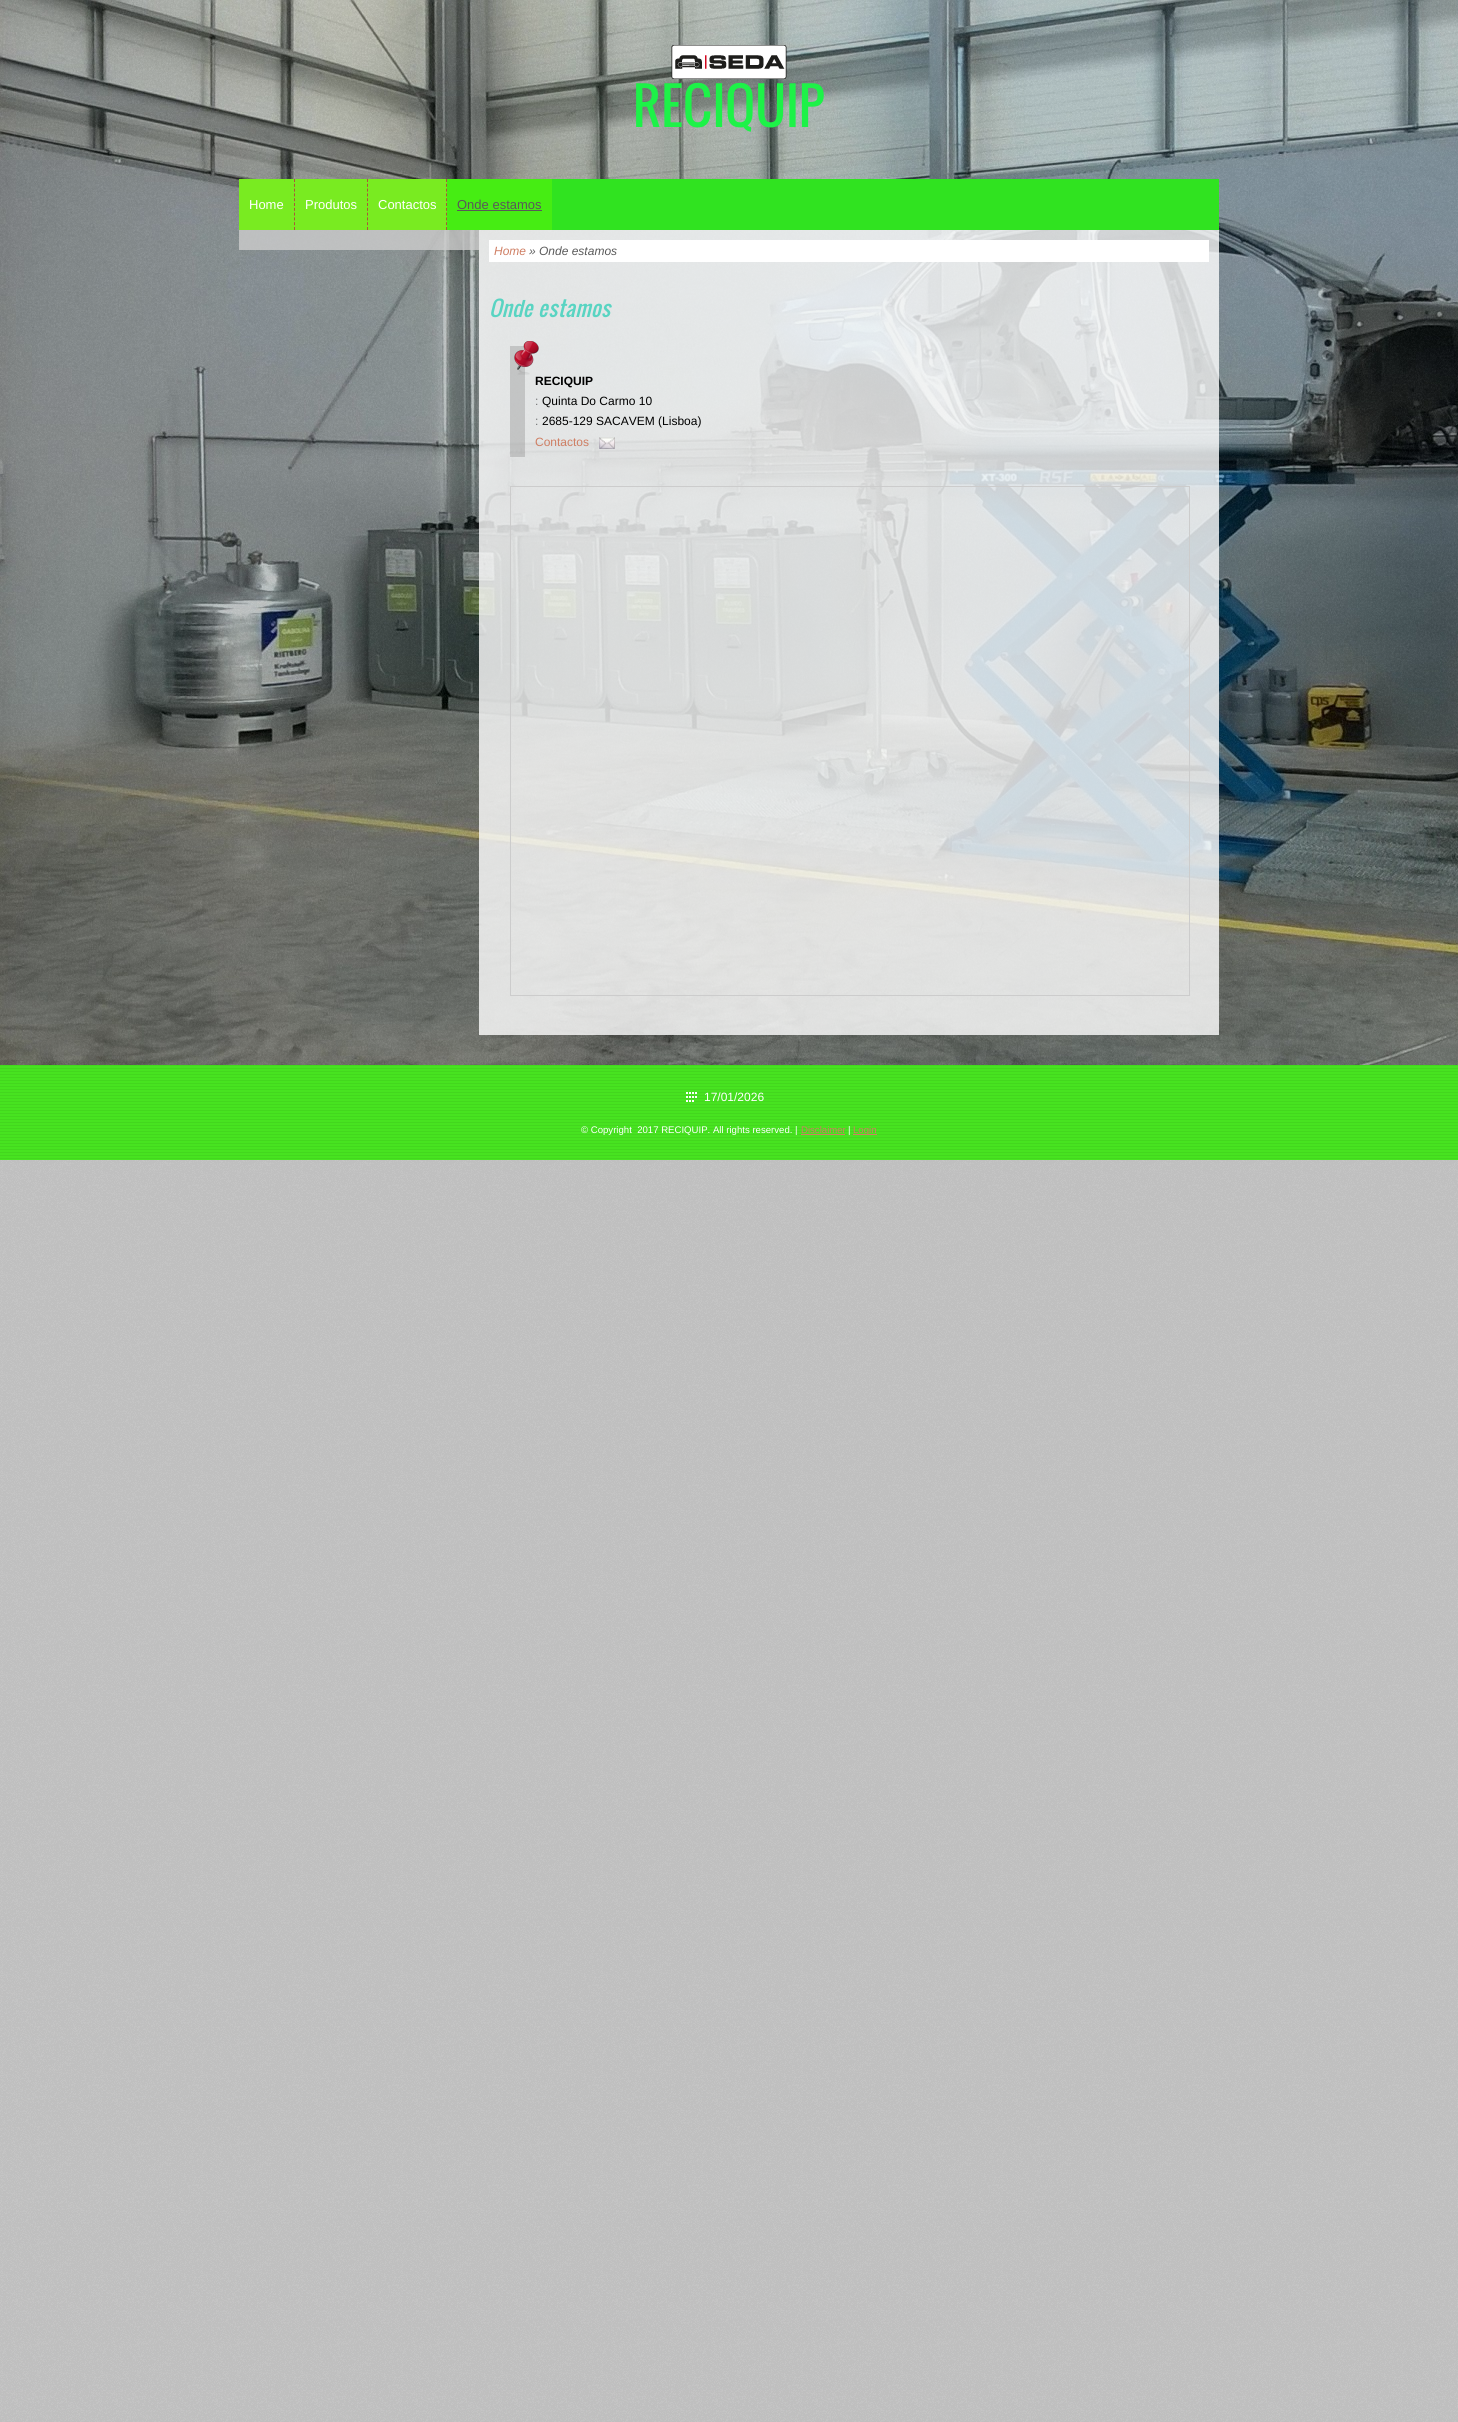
#include <cairo.h>
#include <math.h>
#include <stddef.h>

static cairo_t *ctx;

static void use_color(int r, int g, int b) {
    cairo_set_source_rgb(ctx, r / 255.0, g / 255.0, b / 255.0);
}

static void picture(const char *path, double x, double y, double w, double h) {
    cairo_surface_t *image = cairo_image_surface_create_from_png(path);
    cairo_save(ctx);
    cairo_set_source_surface(ctx, image, x, y);
    cairo_rectangle(ctx, x, y, w, h);
    cairo_fill(ctx);
    cairo_restore(ctx);
    cairo_surface_destroy(image);
}

int main(void) {
    cairo_surface_t *surface = cairo_image_surface_create(CAIRO_FORMAT_RGB24, 1458, 2422);
    ctx = cairo_create(surface);
    cairo_font_options_t *options = cairo_font_options_create();
    cairo_font_options_set_hint_metrics(options, CAIRO_HINT_METRICS_OFF);
    cairo_font_options_set_hint_style(options, CAIRO_HINT_STYLE_NONE);
    cairo_set_font_options(ctx, options);
    cairo_set_miter_limit(ctx, 4);
    use_color(255, 255, 255);
    cairo_paint(ctx);
    picture("img1.png", 0, 0, 1458, 1065);
    picture("img2.png", 0, 0, 1458, 2422);
    picture("img3.png", 671, 45, 116, 34);
    cairo_select_font_face(ctx, "Oswald", CAIRO_FONT_SLANT_NORMAL, CAIRO_FONT_WEIGHT_NORMAL);
    cairo_set_font_size(ctx, 50);
    use_color(29, 242, 72);
    cairo_move_to(ctx, 633, 127);
    cairo_show_text(ctx, "RECIQUIP");
    use_color(48, 227, 32);
    cairo_rectangle(ctx, 552, 179, 667, 51);
    cairo_fill(ctx);
    use_color(121, 235, 33);
    cairo_rectangle(ctx, 239, 179, 208, 51);
    cairo_fill(ctx);
    cairo_new_path(ctx);
    cairo_move_to(ctx, 294.5, 179);
    cairo_line_to(ctx, 294.5, 230);
    use_color(171, 87, 58);
    cairo_set_line_width(ctx, 1);
    cairo_set_dash(ctx, (double[]){3, 1.8}, 2, 0);
    cairo_stroke(ctx);
    cairo_select_font_face(ctx, "Liberation Sans", CAIRO_FONT_SLANT_NORMAL, CAIRO_FONT_WEIGHT_NORMAL);
    cairo_set_font_size(ctx, 13);
    use_color(255, 255, 255);
    cairo_move_to(ctx, 249, 209);
    cairo_show_text(ctx, "Home");
    cairo_new_path(ctx);
    cairo_move_to(ctx, 367.5, 179);
    cairo_line_to(ctx, 367.5, 230);
    use_color(171, 87, 58);
    cairo_stroke(ctx);
    use_color(255, 255, 255);
    cairo_move_to(ctx, 305, 209);
    cairo_show_text(ctx, "Produtos");
    cairo_new_path(ctx);
    cairo_move_to(ctx, 446.5, 179);
    cairo_line_to(ctx, 446.5, 230);
    use_color(171, 87, 58);
    cairo_stroke(ctx);
    use_color(255, 255, 255);
    cairo_move_to(ctx, 378, 209);
    cairo_show_text(ctx, "Contactos");
    use_color(70, 237, 19);
    cairo_rectangle(ctx, 447, 179, 105, 51);
    cairo_fill(ctx);
    use_color(89, 89, 89);
    cairo_move_to(ctx, 457, 209);
    cairo_show_text(ctx, "Onde estamos");
    cairo_rectangle(ctx, 457, 210, 85, 1);
    cairo_fill(ctx);
    cairo_set_source_rgba(ctx, 0.8, 0.8, 0.8, 0.8);
    cairo_rectangle(ctx, 239, 230, 240, 20);
    cairo_fill(ctx);
    cairo_set_source_rgba(ctx, 1, 1, 1, 0.8);
    cairo_rectangle(ctx, 479, 230, 740, 805);
    cairo_fill(ctx);
    use_color(255, 255, 255);
    cairo_rectangle(ctx, 489, 240, 720, 22);
    cairo_fill(ctx);
    cairo_select_font_face(ctx, "Liberation Sans", CAIRO_FONT_SLANT_ITALIC, CAIRO_FONT_WEIGHT_NORMAL);
    cairo_set_font_size(ctx, 12);
    use_color(207, 126, 99);
    cairo_move_to(ctx, 494, 255);
    cairo_show_text(ctx, "Home");
    use_color(89, 89, 89);
    cairo_move_to(ctx, 529, 255);
    cairo_show_text(ctx, "» Onde estamos");
    cairo_select_font_face(ctx, "Oswald", CAIRO_FONT_SLANT_ITALIC, CAIRO_FONT_WEIGHT_NORMAL);
    cairo_set_font_size(ctx, 21);
    use_color(89, 212, 194);
    cairo_move_to(ctx, 489, 317);
    cairo_show_text(ctx, "Onde estamos");
    cairo_set_source_rgba(ctx, 0.533, 0.533, 0.533, 0.35);
    cairo_rectangle(ctx, 510, 346, 15, 111);
    cairo_fill(ctx);
    picture("img4.png", 514, 341, 25, 34);
    cairo_select_font_face(ctx, "Liberation Sans", CAIRO_FONT_SLANT_NORMAL, CAIRO_FONT_WEIGHT_BOLD);
    cairo_set_font_size(ctx, 12);
    use_color(0, 0, 0);
    cairo_move_to(ctx, 535, 385);
    cairo_show_text(ctx, "RECIQUIP");
    cairo_select_font_face(ctx, "Liberation Sans", CAIRO_FONT_SLANT_NORMAL, CAIRO_FONT_WEIGHT_NORMAL);
    use_color(114, 115, 115);
    cairo_move_to(ctx, 535, 405);
    cairo_show_text(ctx, ":");
    use_color(0, 0, 0);
    cairo_move_to(ctx, 542, 405);
    cairo_show_text(ctx, "Quinta Do Carmo 10");
    use_color(114, 115, 115);
    cairo_move_to(ctx, 535, 425);
    cairo_show_text(ctx, ":");
    use_color(0, 0, 0);
    cairo_move_to(ctx, 542, 425);
    cairo_show_text(ctx, "2685-129 SACAVEM (Lisboa)");
    use_color(207, 126, 99);
    cairo_move_to(ctx, 535, 446);
    cairo_show_text(ctx, "Contactos");
    picture("img5.png", 599, 437, 16, 12);
    cairo_rectangle(ctx, 510.5, 486.5, 679, 509);
    use_color(204, 204, 204);
    cairo_set_dash(ctx, NULL, 0, 0);
    cairo_stroke(ctx);
    use_color(71, 227, 32);
    cairo_rectangle(ctx, 0, 1065, 1458, 95);
    cairo_fill(ctx);
    picture("img6.png", 0, 1065, 1458, 94);
    picture("img7.png", 686, 1092, 11, 10);
    use_color(255, 255, 255);
    cairo_move_to(ctx, 704, 1101);
    cairo_show_text(ctx, "17/01/2026");
    cairo_set_font_size(ctx, 9.6);
    cairo_move_to(ctx, 581, 1133);
    cairo_show_text(ctx, "© Copyright  2017 RECIQUIP. All rights reserved. |");
    use_color(207, 126, 99);
    cairo_move_to(ctx, 801, 1133);
    cairo_show_text(ctx, "Disclaimer");
    cairo_rectangle(ctx, 801, 1134, 44, 1);
    cairo_fill(ctx);
    use_color(255, 255, 255);
    cairo_move_to(ctx, 848, 1133);
    cairo_show_text(ctx, "|");
    use_color(207, 126, 99);
    cairo_rectangle(ctx, 853, 1134, 24, 1);
    cairo_fill(ctx);
    cairo_move_to(ctx, 853, 1133);
    cairo_show_text(ctx, "Login");
    cairo_surface_write_to_png(surface, "result.png");
    cairo_font_options_destroy(options);
    cairo_destroy(ctx);
    cairo_surface_destroy(surface);
    return 0;
}
